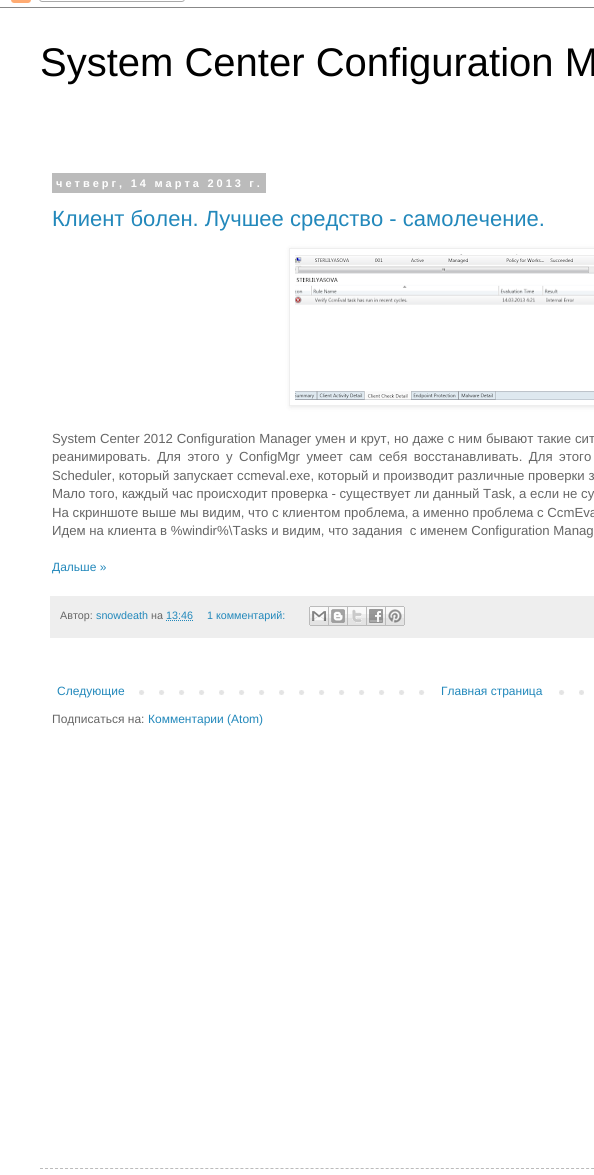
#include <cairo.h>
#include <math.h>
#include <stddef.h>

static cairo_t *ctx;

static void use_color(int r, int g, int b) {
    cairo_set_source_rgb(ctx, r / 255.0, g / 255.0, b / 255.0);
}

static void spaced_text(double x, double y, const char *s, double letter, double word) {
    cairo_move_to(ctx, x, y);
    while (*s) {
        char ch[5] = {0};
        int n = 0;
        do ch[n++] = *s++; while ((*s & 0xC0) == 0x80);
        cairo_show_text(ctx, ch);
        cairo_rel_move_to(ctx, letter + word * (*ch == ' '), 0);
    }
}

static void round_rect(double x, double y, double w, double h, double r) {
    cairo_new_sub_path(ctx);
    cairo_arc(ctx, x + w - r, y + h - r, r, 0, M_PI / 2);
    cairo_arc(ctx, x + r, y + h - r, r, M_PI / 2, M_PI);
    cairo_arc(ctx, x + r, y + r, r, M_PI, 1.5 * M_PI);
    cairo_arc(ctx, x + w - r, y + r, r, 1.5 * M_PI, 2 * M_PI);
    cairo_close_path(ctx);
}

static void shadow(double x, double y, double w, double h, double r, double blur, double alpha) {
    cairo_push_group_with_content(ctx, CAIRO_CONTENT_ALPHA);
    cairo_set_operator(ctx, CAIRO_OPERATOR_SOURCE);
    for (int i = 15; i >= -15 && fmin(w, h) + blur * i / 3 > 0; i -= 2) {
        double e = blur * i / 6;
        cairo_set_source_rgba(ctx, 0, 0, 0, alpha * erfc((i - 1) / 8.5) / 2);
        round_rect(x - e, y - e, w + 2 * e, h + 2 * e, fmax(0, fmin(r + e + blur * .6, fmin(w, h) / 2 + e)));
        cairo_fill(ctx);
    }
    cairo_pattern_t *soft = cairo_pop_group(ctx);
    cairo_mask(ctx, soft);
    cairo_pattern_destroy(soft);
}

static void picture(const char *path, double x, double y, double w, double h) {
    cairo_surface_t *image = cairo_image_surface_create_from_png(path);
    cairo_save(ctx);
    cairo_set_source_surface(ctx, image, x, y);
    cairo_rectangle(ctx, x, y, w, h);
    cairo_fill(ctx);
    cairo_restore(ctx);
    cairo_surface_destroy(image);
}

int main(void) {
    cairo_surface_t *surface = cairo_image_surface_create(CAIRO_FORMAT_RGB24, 594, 1175);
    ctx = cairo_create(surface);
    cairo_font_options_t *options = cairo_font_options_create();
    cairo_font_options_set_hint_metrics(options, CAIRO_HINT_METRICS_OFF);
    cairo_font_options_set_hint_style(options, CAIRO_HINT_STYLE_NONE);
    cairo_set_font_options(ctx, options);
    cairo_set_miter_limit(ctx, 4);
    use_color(255, 255, 255);
    cairo_paint(ctx);
    picture("img1.png", 0, 0, 594, 8);
    cairo_select_font_face(ctx, "Liberation Sans", CAIRO_FONT_SLANT_NORMAL, CAIRO_FONT_WEIGHT_NORMAL);
    cairo_set_font_size(ctx, 40);
    use_color(0, 0, 0);
    cairo_move_to(ctx, 40, 76);
    cairo_show_text(ctx, "System Center Configuration M");
    use_color(187, 187, 187);
    cairo_rectangle(ctx, 52, 173, 214, 20);
    cairo_fill(ctx);
    cairo_select_font_face(ctx, "Liberation Sans", CAIRO_FONT_SLANT_NORMAL, CAIRO_FONT_WEIGHT_BOLD);
    cairo_set_font_size(ctx, 11);
    use_color(255, 255, 255);
    spaced_text(56, 187, "четверг, 14 марта 2013 г.", 3, -0.5);
    cairo_select_font_face(ctx, "Liberation Sans", CAIRO_FONT_SLANT_NORMAL, CAIRO_FONT_WEIGHT_NORMAL);
    cairo_set_font_size(ctx, 22);
    use_color(34, 136, 187);
    cairo_move_to(ctx, 52, 226);
    cairo_show_text(ctx, "Клиент болен. Лучшее средство - самолечение.");
    cairo_save(ctx);
    cairo_set_fill_rule(ctx, CAIRO_FILL_RULE_EVEN_ODD);
    cairo_new_path(ctx);
    cairo_move_to(ctx, 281, 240);
    cairo_line_to(ctx, 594, 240);
    cairo_line_to(ctx, 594, 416);
    cairo_line_to(ctx, 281, 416);
    cairo_close_path(ctx);
    cairo_move_to(ctx, 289, 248);
    cairo_line_to(ctx, 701, 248);
    cairo_line_to(ctx, 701, 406);
    cairo_line_to(ctx, 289, 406);
    cairo_close_path(ctx);
    cairo_clip(ctx);
    use_color(0, 0, 0);
    shadow(290, 249, 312, 158, 0, 2.5, 0.1);
    cairo_restore(ctx);
    cairo_rectangle(ctx, 289.5, 248.5, 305, 157);
    use_color(238, 238, 238);
    cairo_set_line_width(ctx, 1);
    cairo_stroke(ctx);
    picture("img2.png", 295, 254, 299, 146);
    cairo_set_font_size(ctx, 13.2);
    use_color(102, 102, 102);
    spaced_text(52, 443, "System Center 2012 Configuration Manager умен и крут, но даже с ним бывают такие сит", 0, 0.25);
    spaced_text(52, 461, "реанимировать. Для этого у ConfigMgr умеет сам себя восстанавливать. Для этого", 0, 2.75);
    cairo_move_to(ctx, 52, 480);
    cairo_show_text(ctx, "Scheduler, который запускает ccmeval.exe, который и производит различные проверки з");
    cairo_move_to(ctx, 52, 498);
    cairo_show_text(ctx, "Мало того, каждый час происходит проверка - существует ли данный Task, а если не су");
    cairo_move_to(ctx, 52, 517);
    cairo_show_text(ctx, "На скриншоте выше мы видим, что с клиентом проблема, а именно проблема с CcmEva");
    cairo_move_to(ctx, 52, 535);
    cairo_show_text(ctx, "Идем на клиента в %windir%\\Tasks и видим, что задания  с именем Configuration Manag");
    cairo_set_font_size(ctx, 12);
    use_color(34, 136, 187);
    cairo_move_to(ctx, 52, 571);
    cairo_show_text(ctx, "Дальше »");
    use_color(238, 238, 238);
    cairo_rectangle(ctx, 50, 596, 544, 42);
    cairo_fill(ctx);
    cairo_set_font_size(ctx, 10.75);
    use_color(102, 102, 102);
    cairo_move_to(ctx, 60, 619);
    cairo_show_text(ctx, "Автор:");
    use_color(34, 136, 187);
    cairo_move_to(ctx, 96, 619);
    cairo_show_text(ctx, "snowdeath");
    use_color(102, 102, 102);
    cairo_move_to(ctx, 151, 619);
    cairo_show_text(ctx, "на");
    cairo_new_path(ctx);
    cairo_move_to(ctx, 166, 620.5);
    cairo_line_to(ctx, 193, 620.5);
    use_color(34, 136, 187);
    cairo_set_dash(ctx, (double[]){1, 1}, 2, 0);
    cairo_stroke(ctx);
    cairo_move_to(ctx, 166, 619);
    cairo_show_text(ctx, "13:46");
    cairo_move_to(ctx, 207, 619);
    cairo_show_text(ctx, "1 комментарий:");
    picture("img3.png", 309, 606, 20, 20);
    picture("img4.png", 329, 606, 19, 20);
    picture("img5.png", 348, 606, 19, 20);
    picture("img6.png", 367, 606, 19, 20);
    picture("img7.png", 386, 606, 19, 20);
    picture("img8.png", 139, 690, 445, 5);
    cairo_set_font_size(ctx, 12);
    cairo_move_to(ctx, 57, 695);
    cairo_show_text(ctx, "Следующие");
    use_color(255, 255, 255);
    cairo_rectangle(ctx, 439, 690, 106, 5);
    cairo_fill(ctx);
    use_color(34, 136, 187);
    cairo_move_to(ctx, 441, 695);
    cairo_show_text(ctx, "Главная страница");
    use_color(102, 102, 102);
    cairo_move_to(ctx, 52, 723);
    cairo_show_text(ctx, "Подписаться на:");
    use_color(34, 136, 187);
    cairo_move_to(ctx, 148, 723);
    cairo_show_text(ctx, "Комментарии (Atom)");
    cairo_new_path(ctx);
    cairo_move_to(ctx, 40, 1168.5);
    cairo_line_to(ctx, 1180, 1168.5);
    use_color(187, 187, 187);
    cairo_set_dash(ctx, (double[]){3, 2.01}, 2, 0);
    cairo_stroke(ctx);
    cairo_surface_write_to_png(surface, "result.png");
    cairo_font_options_destroy(options);
    cairo_destroy(ctx);
    cairo_surface_destroy(surface);
    return 0;
}
